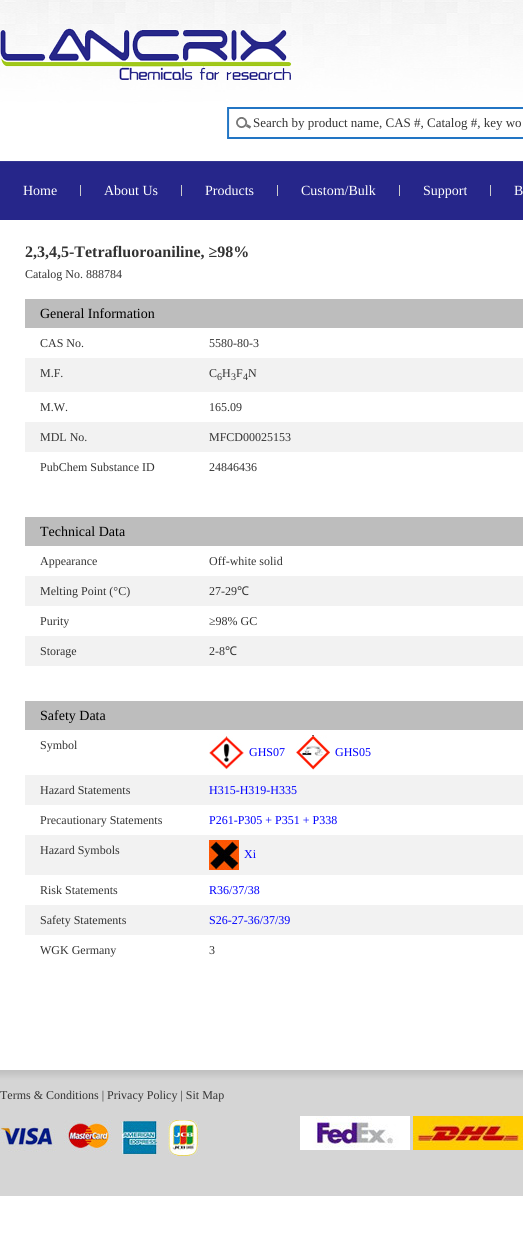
#include <cairo.h>
#include <math.h>
#include <stddef.h>

static cairo_t *ctx;

static void use_color(int r, int g, int b) {
    cairo_set_source_rgb(ctx, r / 255.0, g / 255.0, b / 255.0);
}

static void picture(const char *path, double x, double y, double w, double h) {
    cairo_surface_t *image = cairo_image_surface_create_from_png(path);
    cairo_save(ctx);
    cairo_set_source_surface(ctx, image, x, y);
    cairo_rectangle(ctx, x, y, w, h);
    cairo_fill(ctx);
    cairo_restore(ctx);
    cairo_surface_destroy(image);
}

int main(void) {
    cairo_surface_t *surface = cairo_image_surface_create(CAIRO_FORMAT_RGB24, 523, 1249);
    ctx = cairo_create(surface);
    cairo_font_options_t *options = cairo_font_options_create();
    cairo_font_options_set_hint_metrics(options, CAIRO_HINT_METRICS_OFF);
    cairo_font_options_set_hint_style(options, CAIRO_HINT_STYLE_NONE);
    cairo_set_font_options(ctx, options);
    cairo_set_miter_limit(ctx, 4);
    use_color(255, 255, 255);
    cairo_paint(ctx);
    picture("img1.png", 0, 0, 523, 220);
    picture("img2.png", 0, 28, 292, 52);
    picture("img3.png", 227, 107, 296, 32);
    cairo_select_font_face(ctx, "Liberation Serif", CAIRO_FONT_SLANT_NORMAL, CAIRO_FONT_WEIGHT_NORMAL);
    cairo_set_font_size(ctx, 13);
    use_color(51, 51, 51);
    cairo_move_to(ctx, 253, 127);
    cairo_show_text(ctx, "Search by product name, CAS #, Catalog #, key wo");
    use_color(204, 204, 204);
    cairo_rectangle(ctx, 80, 185, 1, 11);
    cairo_fill(ctx);
    cairo_set_font_size(ctx, 14);
    use_color(255, 255, 255);
    cairo_move_to(ctx, 23, 195);
    cairo_show_text(ctx, "Home");
    use_color(204, 204, 204);
    cairo_rectangle(ctx, 181, 185, 1, 11);
    cairo_fill(ctx);
    use_color(255, 255, 255);
    cairo_move_to(ctx, 104, 195);
    cairo_show_text(ctx, "About Us");
    use_color(204, 204, 204);
    cairo_rectangle(ctx, 277, 185, 1, 11);
    cairo_fill(ctx);
    use_color(255, 255, 255);
    cairo_move_to(ctx, 205, 195);
    cairo_show_text(ctx, "Products");
    use_color(204, 204, 204);
    cairo_rectangle(ctx, 399, 185, 1, 11);
    cairo_fill(ctx);
    use_color(255, 255, 255);
    cairo_move_to(ctx, 301, 195);
    cairo_show_text(ctx, "Custom/Bulk");
    use_color(204, 204, 204);
    cairo_rectangle(ctx, 490, 185, 1, 11);
    cairo_fill(ctx);
    use_color(255, 255, 255);
    cairo_move_to(ctx, 423, 195);
    cairo_show_text(ctx, "Support");
    cairo_move_to(ctx, 514, 195);
    cairo_show_text(ctx, "B");
    cairo_select_font_face(ctx, "Liberation Serif", CAIRO_FONT_SLANT_NORMAL, CAIRO_FONT_WEIGHT_BOLD);
    cairo_set_font_size(ctx, 16);
    use_color(51, 51, 51);
    cairo_move_to(ctx, 25, 257);
    cairo_show_text(ctx, "2,3,4,5-Tetrafluoroaniline, ≥98%");
    cairo_select_font_face(ctx, "Liberation Serif", CAIRO_FONT_SLANT_NORMAL, CAIRO_FONT_WEIGHT_NORMAL);
    cairo_set_font_size(ctx, 12);
    cairo_move_to(ctx, 25, 278);
    cairo_show_text(ctx, "Catalog No. 888784");
    use_color(189, 189, 189);
    cairo_rectangle(ctx, 25, 299, 498, 29);
    cairo_fill(ctx);
    cairo_set_font_size(ctx, 14);
    use_color(0, 0, 0);
    cairo_move_to(ctx, 40, 318);
    cairo_show_text(ctx, "General Information");
    cairo_set_font_size(ctx, 12);
    use_color(51, 51, 51);
    cairo_move_to(ctx, 40, 347);
    cairo_show_text(ctx, "CAS No.");
    cairo_move_to(ctx, 209, 347);
    cairo_show_text(ctx, "5580-80-3");
    use_color(242, 242, 242);
    cairo_rectangle(ctx, 25, 358, 498, 34);
    cairo_fill(ctx);
    use_color(51, 51, 51);
    cairo_move_to(ctx, 40, 377);
    cairo_show_text(ctx, "M.F.");
    cairo_move_to(ctx, 209, 377);
    cairo_show_text(ctx, "C");
    cairo_set_font_size(ctx, 10);
    cairo_move_to(ctx, 217, 380);
    cairo_show_text(ctx, "6");
    cairo_set_font_size(ctx, 12);
    cairo_move_to(ctx, 222, 377);
    cairo_show_text(ctx, "H");
    cairo_set_font_size(ctx, 10);
    cairo_move_to(ctx, 231, 380);
    cairo_show_text(ctx, "3");
    cairo_set_font_size(ctx, 12);
    cairo_move_to(ctx, 236, 377);
    cairo_show_text(ctx, "F");
    cairo_set_font_size(ctx, 10);
    cairo_move_to(ctx, 243, 380);
    cairo_show_text(ctx, "4");
    cairo_set_font_size(ctx, 12);
    cairo_move_to(ctx, 248, 377);
    cairo_show_text(ctx, "N");
    cairo_move_to(ctx, 40, 411);
    cairo_show_text(ctx, "M.W.");
    cairo_move_to(ctx, 209, 411);
    cairo_show_text(ctx, "165.09");
    use_color(242, 242, 242);
    cairo_rectangle(ctx, 25, 422, 498, 30);
    cairo_fill(ctx);
    use_color(51, 51, 51);
    cairo_move_to(ctx, 40, 441);
    cairo_show_text(ctx, "MDL No.");
    cairo_move_to(ctx, 209, 441);
    cairo_show_text(ctx, "MFCD00025153");
    cairo_move_to(ctx, 40, 471);
    cairo_show_text(ctx, "PubChem Substance ID");
    cairo_move_to(ctx, 209, 471);
    cairo_show_text(ctx, "24846436");
    use_color(189, 189, 189);
    cairo_rectangle(ctx, 25, 517, 498, 29);
    cairo_fill(ctx);
    cairo_set_font_size(ctx, 14);
    use_color(0, 0, 0);
    cairo_move_to(ctx, 40, 536);
    cairo_show_text(ctx, "Technical Data");
    cairo_set_font_size(ctx, 12);
    use_color(51, 51, 51);
    cairo_move_to(ctx, 40, 565);
    cairo_show_text(ctx, "Appearance");
    cairo_move_to(ctx, 209, 565);
    cairo_show_text(ctx, "Off-white solid");
    use_color(242, 242, 242);
    cairo_rectangle(ctx, 25, 576, 498, 30);
    cairo_fill(ctx);
    use_color(51, 51, 51);
    cairo_move_to(ctx, 40, 595);
    cairo_show_text(ctx, "Melting Point (°C)");
    cairo_move_to(ctx, 209, 595);
    cairo_show_text(ctx, "27-29");
    cairo_select_font_face(ctx, "Noto Sans", CAIRO_FONT_SLANT_NORMAL, CAIRO_FONT_WEIGHT_NORMAL);
    cairo_move_to(ctx, 237, 595);
    cairo_show_text(ctx, "℃");
    cairo_select_font_face(ctx, "Liberation Serif", CAIRO_FONT_SLANT_NORMAL, CAIRO_FONT_WEIGHT_NORMAL);
    cairo_move_to(ctx, 40, 625);
    cairo_show_text(ctx, "Purity");
    cairo_move_to(ctx, 209, 625);
    cairo_show_text(ctx, "≥98% GC");
    use_color(242, 242, 242);
    cairo_rectangle(ctx, 25, 636, 498, 30);
    cairo_fill(ctx);
    use_color(51, 51, 51);
    cairo_move_to(ctx, 40, 655);
    cairo_show_text(ctx, "Storage");
    cairo_move_to(ctx, 209, 655);
    cairo_show_text(ctx, "2-8");
    cairo_select_font_face(ctx, "Noto Sans", CAIRO_FONT_SLANT_NORMAL, CAIRO_FONT_WEIGHT_NORMAL);
    cairo_move_to(ctx, 225, 655);
    cairo_show_text(ctx, "℃");
    use_color(189, 189, 189);
    cairo_rectangle(ctx, 25, 701, 498, 29);
    cairo_fill(ctx);
    cairo_select_font_face(ctx, "Liberation Serif", CAIRO_FONT_SLANT_NORMAL, CAIRO_FONT_WEIGHT_NORMAL);
    cairo_set_font_size(ctx, 14);
    use_color(0, 0, 0);
    cairo_move_to(ctx, 40, 720);
    cairo_show_text(ctx, "Safety Data");
    cairo_set_font_size(ctx, 12);
    use_color(51, 51, 51);
    cairo_move_to(ctx, 40, 749);
    cairo_show_text(ctx, "Symbol");
    picture("img4.png", 209, 736, 35, 34);
    use_color(0, 0, 255);
    cairo_move_to(ctx, 249, 756);
    cairo_show_text(ctx, "GHS07");
    picture("img5.png", 296, 735, 34, 35);
    cairo_move_to(ctx, 335, 756);
    cairo_show_text(ctx, "GHS05");
    use_color(242, 242, 242);
    cairo_rectangle(ctx, 25, 775, 498, 30);
    cairo_fill(ctx);
    use_color(51, 51, 51);
    cairo_move_to(ctx, 40, 794);
    cairo_show_text(ctx, "Hazard Statements");
    use_color(0, 0, 255);
    cairo_move_to(ctx, 209, 794);
    cairo_show_text(ctx, "H315-H319-H335");
    use_color(51, 51, 51);
    cairo_move_to(ctx, 40, 824);
    cairo_show_text(ctx, "Precautionary Statements");
    use_color(0, 0, 255);
    cairo_move_to(ctx, 209, 824);
    cairo_show_text(ctx, "P261-P305 + P351 + P338");
    use_color(242, 242, 242);
    cairo_rectangle(ctx, 25, 835, 498, 40);
    cairo_fill(ctx);
    use_color(51, 51, 51);
    cairo_move_to(ctx, 40, 854);
    cairo_show_text(ctx, "Hazard Symbols");
    picture("img6.png", 209, 840, 30, 30);
    use_color(0, 0, 255);
    cairo_move_to(ctx, 244, 858);
    cairo_show_text(ctx, "Xi");
    use_color(51, 51, 51);
    cairo_move_to(ctx, 40, 894);
    cairo_show_text(ctx, "Risk Statements");
    use_color(0, 0, 255);
    cairo_move_to(ctx, 209, 894);
    cairo_show_text(ctx, "R36/37/38");
    use_color(242, 242, 242);
    cairo_rectangle(ctx, 25, 905, 498, 30);
    cairo_fill(ctx);
    use_color(51, 51, 51);
    cairo_move_to(ctx, 40, 924);
    cairo_show_text(ctx, "Safety Statements");
    use_color(0, 0, 255);
    cairo_move_to(ctx, 209, 924);
    cairo_show_text(ctx, "S26-27-36/37/39");
    use_color(51, 51, 51);
    cairo_move_to(ctx, 40, 954);
    cairo_show_text(ctx, "WGK Germany");
    cairo_move_to(ctx, 209, 954);
    cairo_show_text(ctx, "3");
    picture("img7.png", 0, 1070, 523, 126);
    cairo_move_to(ctx, 0, 1099);
    cairo_show_text(ctx, "Terms & Conditions | Privacy Policy | Sit Map");
    picture("img8.png", 0, 1120, 199, 36);
    picture("img9.png", 300, 1116, 110, 34);
    picture("img10.png", 413, 1116, 110, 34);
    cairo_surface_write_to_png(surface, "result.png");
    cairo_font_options_destroy(options);
    cairo_destroy(ctx);
    cairo_surface_destroy(surface);
    return 0;
}
